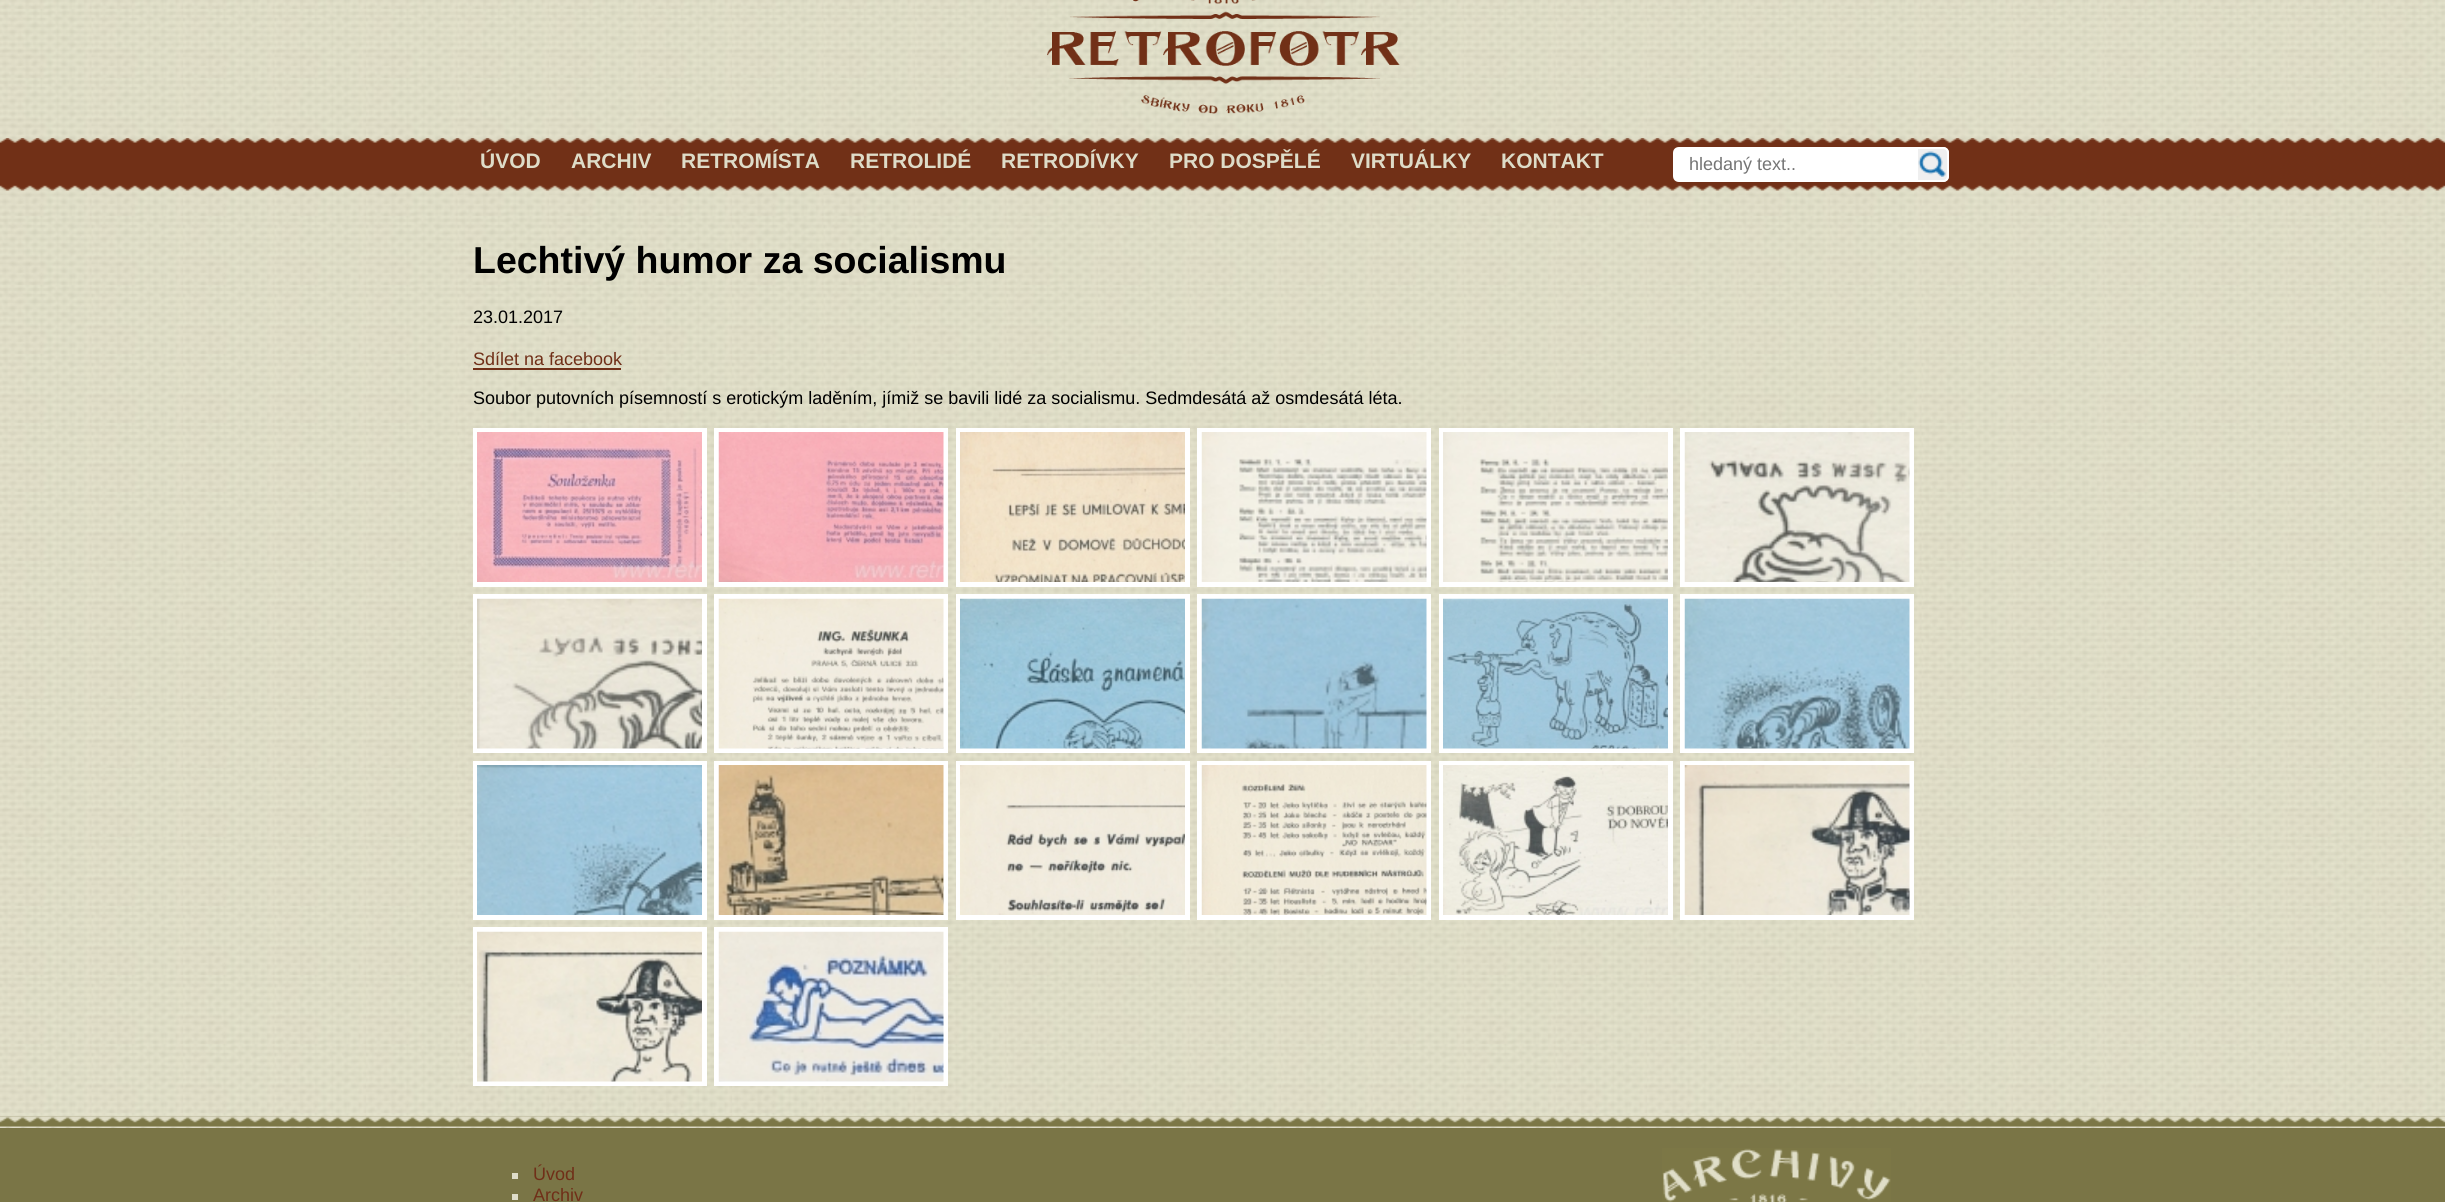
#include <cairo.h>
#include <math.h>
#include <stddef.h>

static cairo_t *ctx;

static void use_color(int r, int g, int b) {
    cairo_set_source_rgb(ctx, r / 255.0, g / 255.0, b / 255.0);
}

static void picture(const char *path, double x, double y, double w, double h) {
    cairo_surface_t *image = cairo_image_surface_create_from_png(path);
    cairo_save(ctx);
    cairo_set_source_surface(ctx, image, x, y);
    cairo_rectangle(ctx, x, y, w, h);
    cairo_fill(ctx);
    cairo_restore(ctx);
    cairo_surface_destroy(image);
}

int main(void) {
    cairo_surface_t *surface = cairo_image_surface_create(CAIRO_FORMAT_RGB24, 2445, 1202);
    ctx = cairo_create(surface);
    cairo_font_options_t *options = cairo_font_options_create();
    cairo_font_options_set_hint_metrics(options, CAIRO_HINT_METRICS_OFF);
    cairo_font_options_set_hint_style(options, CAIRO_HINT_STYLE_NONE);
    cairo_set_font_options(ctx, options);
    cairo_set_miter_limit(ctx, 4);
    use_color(255, 255, 255);
    cairo_paint(ctx);
    picture("img1.png", 0, 0, 2445, 1116);
    picture("img2.png", 1047, 0, 353, 114);
    picture("img3.png", 0, 138, 2445, 53);
    cairo_select_font_face(ctx, "Liberation Sans", CAIRO_FONT_SLANT_NORMAL, CAIRO_FONT_WEIGHT_BOLD);
    cairo_set_font_size(ctx, 21);
    use_color(222, 220, 200);
    cairo_move_to(ctx, 480, 168);
    cairo_show_text(ctx, "ÚVOD");
    cairo_move_to(ctx, 571, 168);
    cairo_show_text(ctx, "ARCHIV");
    cairo_move_to(ctx, 681, 168);
    cairo_show_text(ctx, "RETROMÍSTA");
    cairo_move_to(ctx, 850, 168);
    cairo_show_text(ctx, "RETROLIDÉ");
    cairo_move_to(ctx, 1001, 168);
    cairo_show_text(ctx, "RETRODÍVKY");
    cairo_move_to(ctx, 1169, 168);
    cairo_show_text(ctx, "PRO DOSPĚLÉ");
    cairo_move_to(ctx, 1351, 168);
    cairo_show_text(ctx, "VIRTUÁLKY");
    cairo_move_to(ctx, 1501, 168);
    cairo_show_text(ctx, "KONTAKT");
    use_color(255, 255, 255);
    cairo_new_path(ctx);
    cairo_move_to(ctx, 1679, 148);
    cairo_line_to(ctx, 1915, 148);
    cairo_line_to(ctx, 1915, 181);
    cairo_line_to(ctx, 1679, 181);
    cairo_curve_to(ctx, 1676, 181, 1674, 179, 1674, 176);
    cairo_line_to(ctx, 1674, 153);
    cairo_curve_to(ctx, 1674, 150, 1676, 148, 1679, 148);
    cairo_close_path(ctx);
    cairo_fill_preserve(ctx);
    cairo_stroke(ctx);
    cairo_select_font_face(ctx, "Liberation Sans", CAIRO_FONT_SLANT_NORMAL, CAIRO_FONT_WEIGHT_NORMAL);
    cairo_set_font_size(ctx, 18);
    use_color(117, 117, 117);
    cairo_move_to(ctx, 1689, 170);
    cairo_show_text(ctx, "hledaný text..");
    use_color(239, 239, 239);
    cairo_new_path(ctx);
    cairo_move_to(ctx, 1916, 147);
    cairo_line_to(ctx, 1943, 147);
    cairo_curve_to(ctx, 1946.5, 147, 1949, 149.5, 1949, 153);
    cairo_line_to(ctx, 1949, 176);
    cairo_curve_to(ctx, 1949, 179.5, 1946.5, 182, 1943, 182);
    cairo_line_to(ctx, 1916, 182);
    cairo_close_path(ctx);
    cairo_fill(ctx);
    picture("img4.png", 1918, 151, 28, 26);
    cairo_new_path(ctx);
    cairo_move_to(ctx, 1917, 148);
    cairo_line_to(ctx, 1943, 148);
    cairo_curve_to(ctx, 1946, 148, 1948, 150, 1948, 153);
    cairo_line_to(ctx, 1948, 176);
    cairo_curve_to(ctx, 1948, 179, 1946, 181, 1943, 181);
    cairo_line_to(ctx, 1917, 181);
    cairo_close_path(ctx);
    use_color(255, 255, 255);
    cairo_stroke(ctx);
    cairo_select_font_face(ctx, "Liberation Sans", CAIRO_FONT_SLANT_NORMAL, CAIRO_FONT_WEIGHT_BOLD);
    cairo_set_font_size(ctx, 37.5);
    use_color(0, 0, 0);
    cairo_move_to(ctx, 473, 273);
    cairo_show_text(ctx, "Lechtivý humor za socialismu");
    cairo_select_font_face(ctx, "Liberation Sans", CAIRO_FONT_SLANT_NORMAL, CAIRO_FONT_WEIGHT_NORMAL);
    cairo_set_font_size(ctx, 18);
    cairo_move_to(ctx, 473, 323);
    cairo_show_text(ctx, "23.01.2017");
    use_color(112, 47, 24);
    cairo_move_to(ctx, 473, 365);
    cairo_show_text(ctx, "Sdílet na facebook");
    cairo_rectangle(ctx, 473, 368, 148, 2);
    cairo_fill(ctx);
    use_color(0, 0, 0);
    cairo_move_to(ctx, 473, 404);
    cairo_show_text(ctx, "Soubor putovních písemností s erotickým laděním, jímiž se bavili lidé za socialismu. Sedmdesátá až osmdesátá léta.");
    cairo_rectangle(ctx, 475.5, 430.5, 229, 154);
    use_color(255, 255, 255);
    cairo_set_line_width(ctx, 5);
    cairo_stroke(ctx);
    picture("img5.png", 477, 432, 225, 150);
    cairo_rectangle(ctx, 716.5, 430.5, 229, 154);
    cairo_stroke(ctx);
    picture("img6.png", 718, 432, 226, 150);
    cairo_rectangle(ctx, 958.5, 430.5, 229, 154);
    cairo_stroke(ctx);
    picture("img7.png", 960, 432, 225, 150);
    cairo_rectangle(ctx, 1199.5, 430.5, 229, 154);
    cairo_stroke(ctx);
    picture("img8.png", 1201, 432, 226, 150);
    cairo_rectangle(ctx, 1441.5, 430.5, 229, 154);
    cairo_stroke(ctx);
    picture("img9.png", 1443, 432, 225, 150);
    cairo_rectangle(ctx, 1682.5, 430.5, 229, 154);
    cairo_stroke(ctx);
    picture("img10.png", 1684, 432, 226, 150);
    cairo_rectangle(ctx, 475.5, 596.5, 229, 154);
    cairo_stroke(ctx);
    picture("img11.png", 477, 598, 225, 151);
    cairo_rectangle(ctx, 716.5, 596.5, 229, 154);
    cairo_stroke(ctx);
    picture("img12.png", 718, 598, 226, 151);
    cairo_rectangle(ctx, 958.5, 596.5, 229, 154);
    cairo_stroke(ctx);
    picture("img13.png", 960, 598, 225, 151);
    cairo_rectangle(ctx, 1199.5, 596.5, 229, 154);
    cairo_stroke(ctx);
    picture("img14.png", 1201, 598, 226, 151);
    cairo_rectangle(ctx, 1441.5, 596.5, 229, 154);
    cairo_stroke(ctx);
    picture("img15.png", 1443, 598, 225, 151);
    cairo_rectangle(ctx, 1682.5, 596.5, 229, 154);
    cairo_stroke(ctx);
    picture("img16.png", 1684, 598, 226, 151);
    cairo_rectangle(ctx, 475.5, 763.5, 229, 154);
    cairo_stroke(ctx);
    picture("img17.png", 477, 765, 225, 150);
    cairo_rectangle(ctx, 716.5, 763.5, 229, 154);
    cairo_stroke(ctx);
    picture("img18.png", 718, 765, 226, 150);
    cairo_rectangle(ctx, 958.5, 763.5, 229, 154);
    cairo_stroke(ctx);
    picture("img19.png", 960, 765, 225, 150);
    cairo_rectangle(ctx, 1199.5, 763.5, 229, 154);
    cairo_stroke(ctx);
    picture("img20.png", 1201, 765, 226, 150);
    cairo_rectangle(ctx, 1441.5, 763.5, 229, 154);
    cairo_stroke(ctx);
    picture("img21.png", 1443, 765, 225, 150);
    cairo_rectangle(ctx, 1682.5, 763.5, 229, 154);
    cairo_stroke(ctx);
    picture("img22.png", 1684, 765, 226, 150);
    cairo_rectangle(ctx, 475.5, 929.5, 229, 154);
    cairo_stroke(ctx);
    picture("img23.png", 477, 931, 225, 151);
    cairo_rectangle(ctx, 716.5, 929.5, 229, 154);
    cairo_stroke(ctx);
    picture("img24.png", 718, 931, 226, 151);
    use_color(122, 117, 70);
    cairo_rectangle(ctx, 0, 1128, 2445, 74);
    cairo_fill(ctx);
    picture("img25.png", 0, 1116, 2445, 12);
    use_color(222, 220, 200);
    cairo_rectangle(ctx, 512, 1173, 6, 6);
    cairo_fill(ctx);
    use_color(112, 47, 24);
    cairo_move_to(ctx, 533, 1180);
    cairo_show_text(ctx, "Úvod");
    use_color(222, 220, 200);
    cairo_rectangle(ctx, 512, 1194, 6, 6);
    cairo_fill(ctx);
    use_color(112, 47, 24);
    cairo_move_to(ctx, 533, 1201);
    cairo_show_text(ctx, "Archiv");
    picture("img26.png", 1662, 1148, 229, 54);
    cairo_surface_write_to_png(surface, "result.png");
    cairo_font_options_destroy(options);
    cairo_destroy(ctx);
    cairo_surface_destroy(surface);
    return 0;
}
